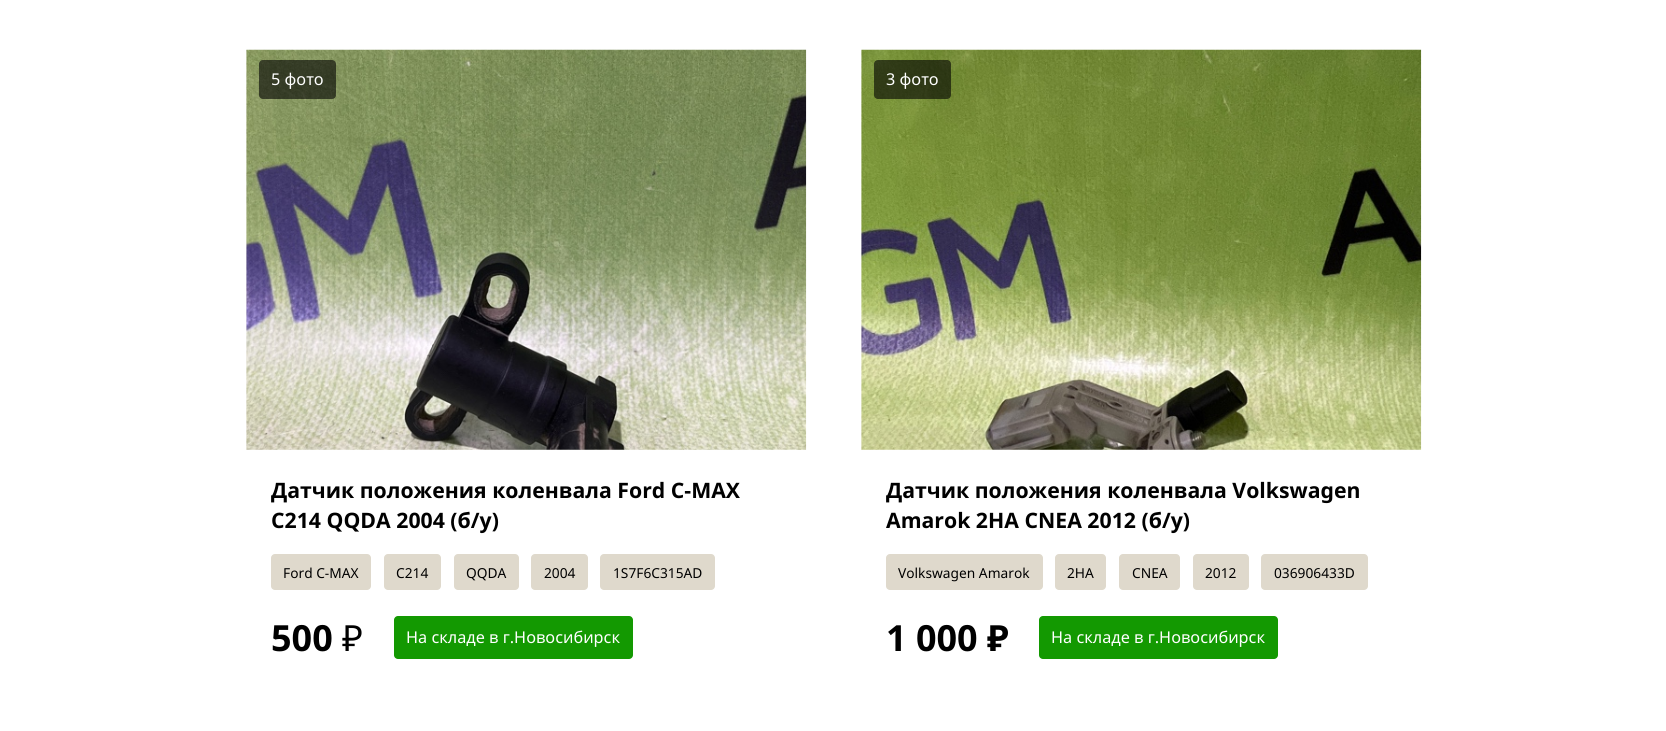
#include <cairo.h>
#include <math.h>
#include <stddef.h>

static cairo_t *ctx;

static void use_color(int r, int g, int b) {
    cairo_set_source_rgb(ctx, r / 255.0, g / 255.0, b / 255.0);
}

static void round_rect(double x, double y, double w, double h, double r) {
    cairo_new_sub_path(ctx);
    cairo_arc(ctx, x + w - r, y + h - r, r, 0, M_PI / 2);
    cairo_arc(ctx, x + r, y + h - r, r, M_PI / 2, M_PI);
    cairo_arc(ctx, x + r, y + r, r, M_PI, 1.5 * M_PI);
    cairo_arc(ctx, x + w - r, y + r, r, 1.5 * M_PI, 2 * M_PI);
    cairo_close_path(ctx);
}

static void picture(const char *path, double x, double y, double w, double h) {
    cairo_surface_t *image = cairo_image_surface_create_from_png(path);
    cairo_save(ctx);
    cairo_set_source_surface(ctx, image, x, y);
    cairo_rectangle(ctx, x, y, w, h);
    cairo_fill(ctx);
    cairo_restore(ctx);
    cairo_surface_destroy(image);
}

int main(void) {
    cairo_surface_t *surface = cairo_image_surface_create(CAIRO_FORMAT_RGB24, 1666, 731);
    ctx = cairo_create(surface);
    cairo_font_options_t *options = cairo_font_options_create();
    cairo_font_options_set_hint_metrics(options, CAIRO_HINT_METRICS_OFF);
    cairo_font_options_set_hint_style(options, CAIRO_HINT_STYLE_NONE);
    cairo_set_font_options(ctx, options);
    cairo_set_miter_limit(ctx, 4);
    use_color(255, 255, 255);
    cairo_paint(ctx);
    use_color(248, 246, 241);
    cairo_rectangle(ctx, 246, 50, 560, 400);
    cairo_fill(ctx);
    picture("img1.png", 246, 49, 561, 401);
    cairo_set_source_rgba(ctx, 0, 0, 0, 0.6);
    round_rect(259, 60, 77, 39, 4);
    cairo_fill(ctx);
    cairo_select_font_face(ctx, "Noto Sans", CAIRO_FONT_SLANT_NORMAL, CAIRO_FONT_WEIGHT_NORMAL);
    cairo_set_font_size(ctx, 16.25);
    use_color(255, 255, 255);
    cairo_move_to(ctx, 271, 85);
    cairo_show_text(ctx, "5 фото");
    cairo_select_font_face(ctx, "Noto Sans", CAIRO_FONT_SLANT_NORMAL, CAIRO_FONT_WEIGHT_BOLD);
    cairo_set_font_size(ctx, 21.25);
    use_color(0, 0, 0);
    cairo_move_to(ctx, 271, 498);
    cairo_show_text(ctx, "Датчик положения коленвала Ford C-MAX");
    cairo_move_to(ctx, 271, 528);
    cairo_show_text(ctx, "C214 QQDA 2004 (б/у)");
    use_color(223, 217, 204);
    round_rect(271, 554, 100, 36, 4);
    cairo_fill(ctx);
    cairo_select_font_face(ctx, "Noto Sans", CAIRO_FONT_SLANT_NORMAL, CAIRO_FONT_WEIGHT_NORMAL);
    cairo_set_font_size(ctx, 13.75);
    use_color(0, 0, 0);
    cairo_move_to(ctx, 283, 578);
    cairo_show_text(ctx, "Ford C-MAX");
    use_color(223, 217, 204);
    round_rect(384, 554, 57, 36, 4);
    cairo_fill(ctx);
    use_color(0, 0, 0);
    cairo_move_to(ctx, 396, 578);
    cairo_show_text(ctx, "C214");
    use_color(223, 217, 204);
    round_rect(454, 554, 65, 36, 4);
    cairo_fill(ctx);
    use_color(0, 0, 0);
    cairo_move_to(ctx, 466, 578);
    cairo_show_text(ctx, "QQDA");
    use_color(223, 217, 204);
    round_rect(531, 554, 57, 36, 4);
    cairo_fill(ctx);
    use_color(0, 0, 0);
    cairo_move_to(ctx, 544, 578);
    cairo_show_text(ctx, "2004");
    use_color(223, 217, 204);
    round_rect(600, 554, 115, 36, 4);
    cairo_fill(ctx);
    use_color(0, 0, 0);
    cairo_move_to(ctx, 613, 578);
    cairo_show_text(ctx, "1S7F6C315AD");
    cairo_select_font_face(ctx, "Noto Sans", CAIRO_FONT_SLANT_NORMAL, CAIRO_FONT_WEIGHT_BOLD);
    cairo_set_font_size(ctx, 36);
    cairo_move_to(ctx, 271, 651);
    cairo_show_text(ctx, "500");
    cairo_select_font_face(ctx, "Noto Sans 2", CAIRO_FONT_SLANT_NORMAL, CAIRO_FONT_WEIGHT_NORMAL);
    cairo_move_to(ctx, 342, 651);
    cairo_show_text(ctx, "₽");
    use_color(19, 153, 1);
    round_rect(394, 616, 239, 43, 4);
    cairo_fill(ctx);
    cairo_select_font_face(ctx, "Noto Sans", CAIRO_FONT_SLANT_NORMAL, CAIRO_FONT_WEIGHT_NORMAL);
    cairo_set_font_size(ctx, 16.25);
    use_color(255, 255, 255);
    cairo_move_to(ctx, 406, 643);
    cairo_show_text(ctx, "На складе в г.Новосибирск");
    use_color(248, 246, 241);
    cairo_rectangle(ctx, 861, 50, 560, 400);
    cairo_fill(ctx);
    picture("img2.png", 861, 49, 561, 401);
    cairo_set_source_rgba(ctx, 0, 0, 0, 0.6);
    round_rect(874, 60, 77, 39, 4);
    cairo_fill(ctx);
    use_color(255, 255, 255);
    cairo_move_to(ctx, 886, 85);
    cairo_show_text(ctx, "3 фото");
    cairo_select_font_face(ctx, "Noto Sans", CAIRO_FONT_SLANT_NORMAL, CAIRO_FONT_WEIGHT_BOLD);
    cairo_set_font_size(ctx, 21.25);
    use_color(0, 0, 0);
    cairo_move_to(ctx, 886, 498);
    cairo_show_text(ctx, "Датчик положения коленвала Volkswagen");
    cairo_move_to(ctx, 886, 528);
    cairo_show_text(ctx, "Amarok 2HA CNEA 2012 (б/у)");
    use_color(223, 217, 204);
    round_rect(886, 554, 157, 36, 4);
    cairo_fill(ctx);
    cairo_select_font_face(ctx, "Noto Sans", CAIRO_FONT_SLANT_NORMAL, CAIRO_FONT_WEIGHT_NORMAL);
    cairo_set_font_size(ctx, 13.75);
    use_color(0, 0, 0);
    cairo_move_to(ctx, 898, 578);
    cairo_show_text(ctx, "Volkswagen Amarok");
    use_color(223, 217, 204);
    round_rect(1055, 554, 51, 36, 4);
    cairo_fill(ctx);
    use_color(0, 0, 0);
    cairo_move_to(ctx, 1067, 578);
    cairo_show_text(ctx, "2HA");
    use_color(223, 217, 204);
    round_rect(1119, 554, 61, 36, 4);
    cairo_fill(ctx);
    use_color(0, 0, 0);
    cairo_move_to(ctx, 1132, 578);
    cairo_show_text(ctx, "CNEA");
    use_color(223, 217, 204);
    round_rect(1193, 554, 56, 36, 4);
    cairo_fill(ctx);
    use_color(0, 0, 0);
    cairo_move_to(ctx, 1205, 578);
    cairo_show_text(ctx, "2012");
    use_color(223, 217, 204);
    round_rect(1261, 554, 107, 36, 4);
    cairo_fill(ctx);
    use_color(0, 0, 0);
    cairo_move_to(ctx, 1274, 578);
    cairo_show_text(ctx, "036906433D");
    cairo_select_font_face(ctx, "Noto Sans", CAIRO_FONT_SLANT_NORMAL, CAIRO_FONT_WEIGHT_BOLD);
    cairo_set_font_size(ctx, 36);
    cairo_move_to(ctx, 886, 651);
    cairo_show_text(ctx, "1 000");
    cairo_select_font_face(ctx, "Noto Sans 2", CAIRO_FONT_SLANT_NORMAL, CAIRO_FONT_WEIGHT_BOLD);
    cairo_move_to(ctx, 987, 651);
    cairo_show_text(ctx, "₽");
    use_color(19, 153, 1);
    round_rect(1039, 616, 239, 43, 4);
    cairo_fill(ctx);
    cairo_select_font_face(ctx, "Noto Sans", CAIRO_FONT_SLANT_NORMAL, CAIRO_FONT_WEIGHT_NORMAL);
    cairo_set_font_size(ctx, 16.25);
    use_color(255, 255, 255);
    cairo_move_to(ctx, 1051, 643);
    cairo_show_text(ctx, "На складе в г.Новосибирск");
    cairo_surface_write_to_png(surface, "result.png");
    cairo_font_options_destroy(options);
    cairo_destroy(ctx);
    cairo_surface_destroy(surface);
    return 0;
}
